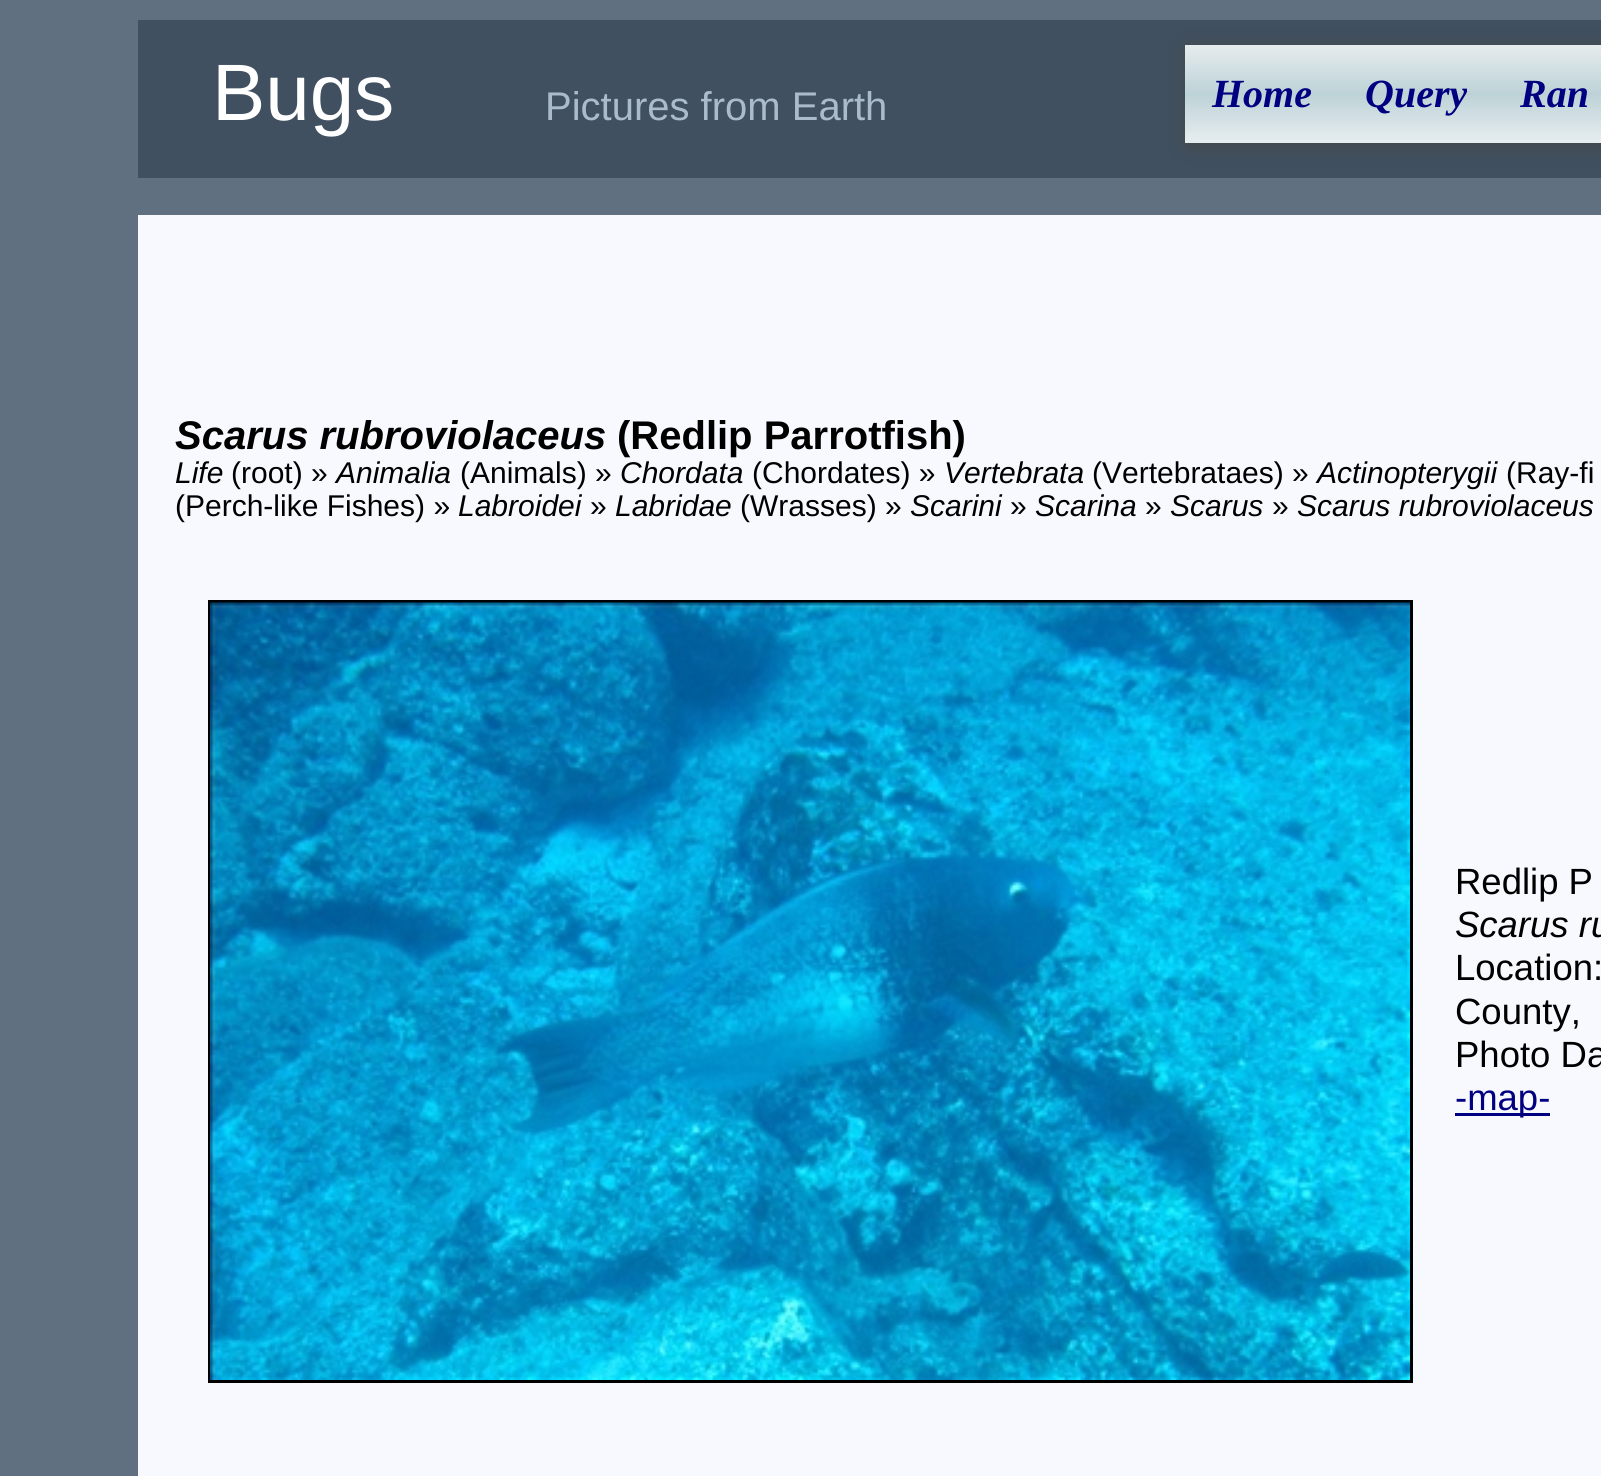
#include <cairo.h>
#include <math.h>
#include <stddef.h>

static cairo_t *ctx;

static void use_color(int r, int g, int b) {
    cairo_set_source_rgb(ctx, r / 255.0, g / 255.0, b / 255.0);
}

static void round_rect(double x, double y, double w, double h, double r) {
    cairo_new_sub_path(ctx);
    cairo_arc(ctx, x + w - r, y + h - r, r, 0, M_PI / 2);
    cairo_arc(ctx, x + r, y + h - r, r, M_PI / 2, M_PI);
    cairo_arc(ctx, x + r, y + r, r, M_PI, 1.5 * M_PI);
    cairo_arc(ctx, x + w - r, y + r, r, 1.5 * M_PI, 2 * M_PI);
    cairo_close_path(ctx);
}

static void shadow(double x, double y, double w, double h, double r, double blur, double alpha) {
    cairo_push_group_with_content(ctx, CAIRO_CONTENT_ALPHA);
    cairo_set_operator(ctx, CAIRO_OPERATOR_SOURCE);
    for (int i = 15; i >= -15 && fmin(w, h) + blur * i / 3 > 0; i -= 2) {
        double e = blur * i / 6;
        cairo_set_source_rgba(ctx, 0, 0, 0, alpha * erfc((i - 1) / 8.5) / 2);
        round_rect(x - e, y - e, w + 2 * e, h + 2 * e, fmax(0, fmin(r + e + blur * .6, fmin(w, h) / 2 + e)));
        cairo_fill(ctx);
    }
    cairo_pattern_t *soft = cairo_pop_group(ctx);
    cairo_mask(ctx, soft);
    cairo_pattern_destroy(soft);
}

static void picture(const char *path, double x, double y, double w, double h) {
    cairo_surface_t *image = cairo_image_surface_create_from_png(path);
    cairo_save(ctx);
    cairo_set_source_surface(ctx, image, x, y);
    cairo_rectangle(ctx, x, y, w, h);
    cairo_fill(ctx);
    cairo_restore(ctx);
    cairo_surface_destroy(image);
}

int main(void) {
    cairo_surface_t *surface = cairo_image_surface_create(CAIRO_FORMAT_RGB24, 1601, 1476);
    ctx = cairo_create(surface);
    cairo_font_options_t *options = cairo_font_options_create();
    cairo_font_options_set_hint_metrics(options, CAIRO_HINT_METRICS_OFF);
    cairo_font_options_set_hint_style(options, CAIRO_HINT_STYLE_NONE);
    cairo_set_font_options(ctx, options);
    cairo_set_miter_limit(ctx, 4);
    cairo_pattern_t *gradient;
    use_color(96, 112, 128);
    cairo_paint(ctx);
    use_color(64, 80, 96);
    cairo_rectangle(ctx, 138, 20, 1463, 158);
    cairo_fill(ctx);
    cairo_select_font_face(ctx, "Liberation Sans", CAIRO_FONT_SLANT_NORMAL, CAIRO_FONT_WEIGHT_NORMAL);
    cairo_set_font_size(ctx, 80);
    use_color(255, 255, 255);
    cairo_move_to(ctx, 212, 120);
    cairo_show_text(ctx, "Bugs");
    cairo_set_font_size(ctx, 40);
    use_color(170, 187, 204);
    cairo_move_to(ctx, 545, 120);
    cairo_show_text(ctx, "Pictures from Earth");
    use_color(68, 68, 68);
    shadow(1188, 48, 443, 97, 0, 10, 1);
    gradient = cairo_pattern_create_linear(1578, 45, 1578, 143);
    cairo_pattern_add_color_stop_rgba(gradient, 0, 0.902, 0.925, 0.933, 1);
    cairo_pattern_add_color_stop_rgba(gradient, 0.5, 0.741, 0.824, 0.843, 1);
    cairo_pattern_add_color_stop_rgba(gradient, 1, 0.91, 0.933, 0.941, 1);
    cairo_set_source(ctx, gradient);
    cairo_pattern_destroy(gradient);
    cairo_rectangle(ctx, 1185, 45, 416, 98);
    cairo_fill(ctx);
    cairo_select_font_face(ctx, "Liberation Serif", CAIRO_FONT_SLANT_ITALIC, CAIRO_FONT_WEIGHT_BOLD);
    use_color(0, 0, 128);
    cairo_move_to(ctx, 1212, 107);
    cairo_show_text(ctx, "Home");
    cairo_move_to(ctx, 1365, 107);
    cairo_show_text(ctx, "Query");
    cairo_move_to(ctx, 1520, 107);
    cairo_show_text(ctx, "Ran");
    use_color(248, 248, 255);
    cairo_rectangle(ctx, 138, 215, 1463, 1261);
    cairo_fill(ctx);
    cairo_select_font_face(ctx, "Liberation Sans", CAIRO_FONT_SLANT_ITALIC, CAIRO_FONT_WEIGHT_BOLD);
    use_color(0, 0, 0);
    cairo_move_to(ctx, 175, 449);
    cairo_show_text(ctx, "Scarus rubroviolaceus");
    cairo_select_font_face(ctx, "Liberation Sans", CAIRO_FONT_SLANT_NORMAL, CAIRO_FONT_WEIGHT_BOLD);
    cairo_move_to(ctx, 617, 449);
    cairo_show_text(ctx, "(Redlip Parrotfish)");
    cairo_select_font_face(ctx, "Liberation Sans", CAIRO_FONT_SLANT_ITALIC, CAIRO_FONT_WEIGHT_NORMAL);
    cairo_set_font_size(ctx, 30);
    cairo_move_to(ctx, 175, 483);
    cairo_show_text(ctx, "Life");
    cairo_select_font_face(ctx, "Liberation Sans", CAIRO_FONT_SLANT_NORMAL, CAIRO_FONT_WEIGHT_NORMAL);
    cairo_move_to(ctx, 231, 483);
    cairo_show_text(ctx, "(root) »");
    cairo_select_font_face(ctx, "Liberation Sans", CAIRO_FONT_SLANT_ITALIC, CAIRO_FONT_WEIGHT_NORMAL);
    cairo_move_to(ctx, 336, 483);
    cairo_show_text(ctx, "Animalia");
    cairo_select_font_face(ctx, "Liberation Sans", CAIRO_FONT_SLANT_NORMAL, CAIRO_FONT_WEIGHT_NORMAL);
    cairo_move_to(ctx, 460, 483);
    cairo_show_text(ctx, "(Animals) »");
    cairo_select_font_face(ctx, "Liberation Sans", CAIRO_FONT_SLANT_ITALIC, CAIRO_FONT_WEIGHT_NORMAL);
    cairo_move_to(ctx, 620, 483);
    cairo_show_text(ctx, "Chordata");
    cairo_select_font_face(ctx, "Liberation Sans", CAIRO_FONT_SLANT_NORMAL, CAIRO_FONT_WEIGHT_NORMAL);
    cairo_move_to(ctx, 752, 483);
    cairo_show_text(ctx, "(Chordates) »");
    cairo_select_font_face(ctx, "Liberation Sans", CAIRO_FONT_SLANT_ITALIC, CAIRO_FONT_WEIGHT_NORMAL);
    cairo_move_to(ctx, 944, 483);
    cairo_show_text(ctx, "Vertebrata");
    cairo_select_font_face(ctx, "Liberation Sans", CAIRO_FONT_SLANT_NORMAL, CAIRO_FONT_WEIGHT_NORMAL);
    cairo_move_to(ctx, 1092, 483);
    cairo_show_text(ctx, "(Vertebrataes) »");
    cairo_select_font_face(ctx, "Liberation Sans", CAIRO_FONT_SLANT_ITALIC, CAIRO_FONT_WEIGHT_NORMAL);
    cairo_move_to(ctx, 1317, 483);
    cairo_show_text(ctx, "Actinopterygii");
    cairo_select_font_face(ctx, "Liberation Sans", CAIRO_FONT_SLANT_NORMAL, CAIRO_FONT_WEIGHT_NORMAL);
    cairo_move_to(ctx, 1506, 483);
    cairo_show_text(ctx, "(Ray-fi");
    cairo_move_to(ctx, 175, 516);
    cairo_show_text(ctx, "(Perch-like Fishes) »");
    cairo_select_font_face(ctx, "Liberation Sans", CAIRO_FONT_SLANT_ITALIC, CAIRO_FONT_WEIGHT_NORMAL);
    cairo_move_to(ctx, 458, 516);
    cairo_show_text(ctx, "Labroidei");
    cairo_select_font_face(ctx, "Liberation Sans", CAIRO_FONT_SLANT_NORMAL, CAIRO_FONT_WEIGHT_NORMAL);
    cairo_move_to(ctx, 590, 516);
    cairo_show_text(ctx, "»");
    cairo_select_font_face(ctx, "Liberation Sans", CAIRO_FONT_SLANT_ITALIC, CAIRO_FONT_WEIGHT_NORMAL);
    cairo_move_to(ctx, 615, 516);
    cairo_show_text(ctx, "Labridae");
    cairo_select_font_face(ctx, "Liberation Sans", CAIRO_FONT_SLANT_NORMAL, CAIRO_FONT_WEIGHT_NORMAL);
    cairo_move_to(ctx, 740, 516);
    cairo_show_text(ctx, "(Wrasses) »");
    cairo_select_font_face(ctx, "Liberation Sans", CAIRO_FONT_SLANT_ITALIC, CAIRO_FONT_WEIGHT_NORMAL);
    cairo_move_to(ctx, 910, 516);
    cairo_show_text(ctx, "Scarini");
    cairo_select_font_face(ctx, "Liberation Sans", CAIRO_FONT_SLANT_NORMAL, CAIRO_FONT_WEIGHT_NORMAL);
    cairo_move_to(ctx, 1010, 516);
    cairo_show_text(ctx, "»");
    cairo_select_font_face(ctx, "Liberation Sans", CAIRO_FONT_SLANT_ITALIC, CAIRO_FONT_WEIGHT_NORMAL);
    cairo_move_to(ctx, 1035, 516);
    cairo_show_text(ctx, "Scarina");
    cairo_select_font_face(ctx, "Liberation Sans", CAIRO_FONT_SLANT_NORMAL, CAIRO_FONT_WEIGHT_NORMAL);
    cairo_move_to(ctx, 1145, 516);
    cairo_show_text(ctx, "»");
    cairo_select_font_face(ctx, "Liberation Sans", CAIRO_FONT_SLANT_ITALIC, CAIRO_FONT_WEIGHT_NORMAL);
    cairo_move_to(ctx, 1170, 516);
    cairo_show_text(ctx, "Scarus");
    cairo_select_font_face(ctx, "Liberation Sans", CAIRO_FONT_SLANT_NORMAL, CAIRO_FONT_WEIGHT_NORMAL);
    cairo_move_to(ctx, 1272, 516);
    cairo_show_text(ctx, "»");
    cairo_select_font_face(ctx, "Liberation Sans", CAIRO_FONT_SLANT_ITALIC, CAIRO_FONT_WEIGHT_NORMAL);
    cairo_move_to(ctx, 1297, 516);
    cairo_show_text(ctx, "Scarus rubroviolaceus");
    cairo_rectangle(ctx, 209.5, 601.5, 1202, 780);
    cairo_set_line_width(ctx, 3);
    cairo_stroke(ctx);
    picture("img1.png", 210, 602, 1200, 778);
    cairo_select_font_face(ctx, "Liberation Sans", CAIRO_FONT_SLANT_NORMAL, CAIRO_FONT_WEIGHT_NORMAL);
    cairo_set_font_size(ctx, 36.5);
    cairo_move_to(ctx, 1455, 894);
    cairo_show_text(ctx, "Redlip P");
    cairo_select_font_face(ctx, "Liberation Sans", CAIRO_FONT_SLANT_ITALIC, CAIRO_FONT_WEIGHT_NORMAL);
    cairo_move_to(ctx, 1455, 937);
    cairo_show_text(ctx, "Scarus ru");
    cairo_select_font_face(ctx, "Liberation Sans", CAIRO_FONT_SLANT_NORMAL, CAIRO_FONT_WEIGHT_NORMAL);
    cairo_move_to(ctx, 1455, 980);
    cairo_show_text(ctx, "Location:");
    cairo_move_to(ctx, 1455, 1024);
    cairo_show_text(ctx, "County,");
    cairo_move_to(ctx, 1455, 1067);
    cairo_show_text(ctx, "Photo Da");
    use_color(0, 0, 128);
    cairo_rectangle(ctx, 1455, 1113, 95, 3);
    cairo_fill(ctx);
    cairo_move_to(ctx, 1455, 1110);
    cairo_show_text(ctx, "-map-");
    cairo_surface_write_to_png(surface, "result.png");
    cairo_font_options_destroy(options);
    cairo_destroy(ctx);
    cairo_surface_destroy(surface);
    return 0;
}
